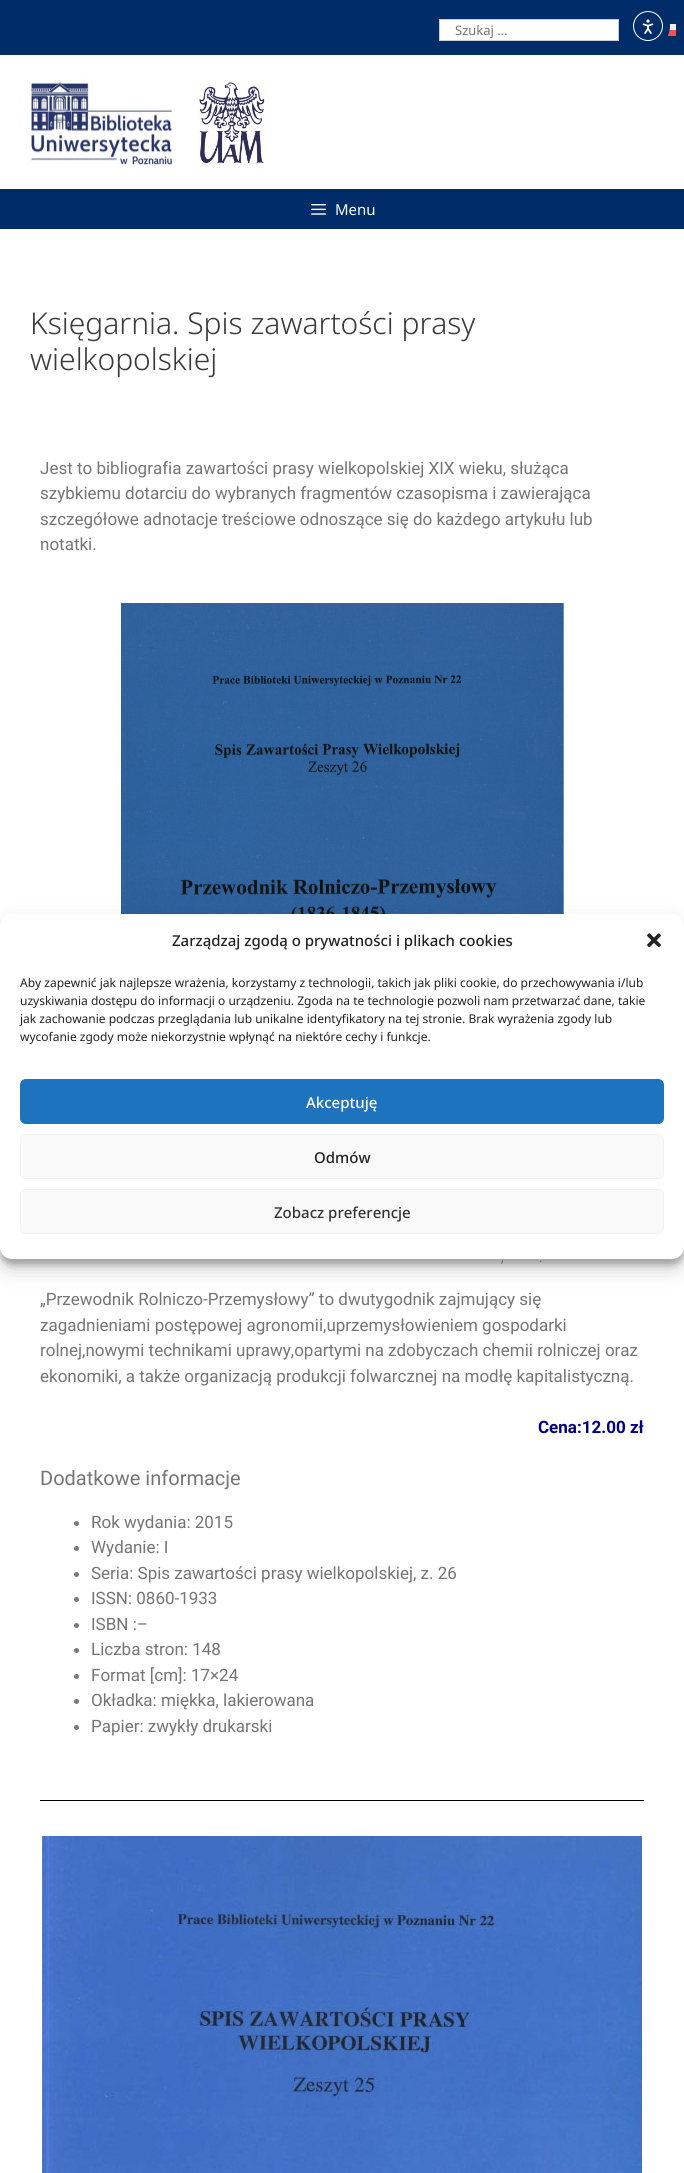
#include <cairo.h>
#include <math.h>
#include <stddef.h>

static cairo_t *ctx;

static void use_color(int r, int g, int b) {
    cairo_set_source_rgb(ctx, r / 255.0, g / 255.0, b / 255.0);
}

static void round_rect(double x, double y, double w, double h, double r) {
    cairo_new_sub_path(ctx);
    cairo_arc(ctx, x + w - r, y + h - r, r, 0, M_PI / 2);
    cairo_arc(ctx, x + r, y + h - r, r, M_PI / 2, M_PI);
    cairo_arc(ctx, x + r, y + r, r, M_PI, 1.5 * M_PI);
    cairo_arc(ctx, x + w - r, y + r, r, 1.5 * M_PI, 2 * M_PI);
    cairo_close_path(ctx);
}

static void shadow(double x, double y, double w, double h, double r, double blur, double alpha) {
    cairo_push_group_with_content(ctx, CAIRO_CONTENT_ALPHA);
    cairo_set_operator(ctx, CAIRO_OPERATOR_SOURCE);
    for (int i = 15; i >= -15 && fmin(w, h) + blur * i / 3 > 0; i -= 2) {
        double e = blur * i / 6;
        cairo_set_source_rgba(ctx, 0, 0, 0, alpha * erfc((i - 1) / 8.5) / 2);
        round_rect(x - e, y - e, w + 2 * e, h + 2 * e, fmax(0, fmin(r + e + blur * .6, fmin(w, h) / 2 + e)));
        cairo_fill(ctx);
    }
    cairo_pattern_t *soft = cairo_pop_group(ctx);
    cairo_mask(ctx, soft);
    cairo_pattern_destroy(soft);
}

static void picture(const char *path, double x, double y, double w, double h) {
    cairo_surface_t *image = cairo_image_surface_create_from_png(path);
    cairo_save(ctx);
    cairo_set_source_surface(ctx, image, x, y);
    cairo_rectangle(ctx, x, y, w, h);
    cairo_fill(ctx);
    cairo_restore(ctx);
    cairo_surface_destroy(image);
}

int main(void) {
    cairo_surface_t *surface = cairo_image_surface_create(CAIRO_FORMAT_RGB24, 684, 2173);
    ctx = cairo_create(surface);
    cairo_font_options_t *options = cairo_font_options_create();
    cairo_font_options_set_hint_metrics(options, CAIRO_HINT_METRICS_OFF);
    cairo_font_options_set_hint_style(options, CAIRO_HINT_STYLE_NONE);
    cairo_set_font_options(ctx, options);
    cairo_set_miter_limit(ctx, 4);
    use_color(255, 255, 255);
    cairo_paint(ctx);
    use_color(0, 45, 105);
    cairo_rectangle(ctx, 0, 0, 684, 55);
    cairo_fill(ctx);
    use_color(255, 255, 255);
    cairo_rectangle(ctx, 439.5, 19.5, 179, 21);
    cairo_fill_preserve(ctx);
    use_color(204, 204, 204);
    cairo_set_line_width(ctx, 1);
    cairo_stroke(ctx);
    cairo_select_font_face(ctx, "Noto Sans", CAIRO_FONT_SLANT_NORMAL, CAIRO_FONT_WEIGHT_NORMAL);
    cairo_set_font_size(ctx, 13);
    use_color(117, 117, 117);
    cairo_move_to(ctx, 455, 35);
    cairo_show_text(ctx, "Szukaj …");
    use_color(240, 240, 240);
    cairo_rectangle(ctx, 669, 24, 7, 6);
    cairo_fill(ctx);
    use_color(255, 75, 85);
    cairo_rectangle(ctx, 667, 30, 9, 6);
    cairo_fill(ctx);
    use_color(0, 45, 105);
    cairo_arc(ctx, 648, 26, 22, 0, 2 * M_PI);
    cairo_fill(ctx);
    cairo_arc(ctx, 648, 26, 14.5, 0, 2 * M_PI);
    use_color(255, 255, 255);
    cairo_stroke(ctx);
    picture("img1.png", 642, 19, 12, 15);
    picture("img2.png", 27, 78, 148, 88);
    picture("img3.png", 197, 81, 69, 84);
    use_color(0, 45, 105);
    cairo_rectangle(ctx, 0, 189, 684, 40);
    cairo_fill(ctx);
    picture("img4.png", 311, 204, 15, 11);
    cairo_set_font_size(ctx, 15);
    use_color(255, 255, 255);
    cairo_move_to(ctx, 335, 215);
    cairo_show_text(ctx, "Menu");
    cairo_select_font_face(ctx, "Noto Sans Light", CAIRO_FONT_SLANT_NORMAL, CAIRO_FONT_WEIGHT_NORMAL);
    cairo_set_font_size(ctx, 30);
    use_color(58, 58, 58);
    cairo_move_to(ctx, 30, 334);
    cairo_show_text(ctx, "Księgarnia. Spis zawartości prasy");
    cairo_move_to(ctx, 30, 370);
    cairo_show_text(ctx, "wielkopolskiej");
    cairo_select_font_face(ctx, "Roboto", CAIRO_FONT_SLANT_NORMAL, CAIRO_FONT_WEIGHT_NORMAL);
    cairo_set_font_size(ctx, 17);
    use_color(117, 117, 117);
    cairo_move_to(ctx, 40, 474);
    cairo_show_text(ctx, "Jest to bibliografia zawartości prasy wielkopolskiej XIX wieku, służąca");
    cairo_move_to(ctx, 40, 499);
    cairo_show_text(ctx, "szybkiemu dotarciu do wybranych fragmentów czasopisma i zawierająca");
    cairo_move_to(ctx, 40, 525);
    cairo_show_text(ctx, "szczegółowe adnotacje treściowe odnoszące się do każdego artykułu lub");
    cairo_move_to(ctx, 40, 550);
    cairo_show_text(ctx, "notatki.");
    picture("img5.png", 121, 603, 443, 311);
    cairo_set_font_size(ctx, 13);
    use_color(149, 149, 149);
    cairo_move_to(ctx, 501, 1262);
    cairo_show_text(ctx, ",");
    cairo_move_to(ctx, 539, 1262);
    cairo_show_text(ctx, ".");
    cairo_set_font_size(ctx, 17);
    use_color(117, 117, 117);
    cairo_move_to(ctx, 40, 1305);
    cairo_show_text(ctx, "„Przewodnik Rolniczo-Przemysłowy” to dwutygodnik zajmujący się");
    cairo_move_to(ctx, 40, 1331);
    cairo_show_text(ctx, "zagadnieniami postępowej agronomii,uprzemysłowieniem gospodarki");
    cairo_move_to(ctx, 40, 1356);
    cairo_show_text(ctx, "rolnej,nowymi technikami uprawy,opartymi na zdobyczach chemii rolniczej oraz");
    cairo_move_to(ctx, 40, 1382);
    cairo_show_text(ctx, "ekonomiki, a także organizacją produkcji folwarcznej na modłę kapitalistyczną.");
    cairo_select_font_face(ctx, "Roboto", CAIRO_FONT_SLANT_NORMAL, CAIRO_FONT_WEIGHT_BOLD);
    use_color(0, 0, 128);
    cairo_move_to(ctx, 538, 1433);
    cairo_show_text(ctx, "Cena:12.00 zł");
    cairo_select_font_face(ctx, "Roboto", CAIRO_FONT_SLANT_NORMAL, CAIRO_FONT_WEIGHT_NORMAL);
    cairo_set_font_size(ctx, 20);
    use_color(117, 117, 117);
    cairo_move_to(ctx, 40, 1485);
    cairo_show_text(ctx, "Dodatkowe informacje");
    use_color(122, 122, 122);
    cairo_new_path(ctx);
    cairo_arc(ctx, 76.5, 1523.5, 2.5, 0, 2 * M_PI);
    cairo_fill(ctx);
    cairo_set_font_size(ctx, 17);
    use_color(117, 117, 117);
    cairo_move_to(ctx, 91, 1528);
    cairo_show_text(ctx, "Rok wydania: 2015");
    use_color(122, 122, 122);
    cairo_new_path(ctx);
    cairo_arc(ctx, 76.5, 1548.5, 2.5, 0, 2 * M_PI);
    cairo_fill(ctx);
    use_color(117, 117, 117);
    cairo_move_to(ctx, 91, 1553);
    cairo_show_text(ctx, "Wydanie: I");
    use_color(122, 122, 122);
    cairo_new_path(ctx);
    cairo_arc(ctx, 76.5, 1574.5, 2.5, 0, 2 * M_PI);
    cairo_fill(ctx);
    use_color(117, 117, 117);
    cairo_move_to(ctx, 91, 1579);
    cairo_show_text(ctx, "Seria: Spis zawartości prasy wielkopolskiej, z. 26");
    use_color(122, 122, 122);
    cairo_new_path(ctx);
    cairo_arc(ctx, 76.5, 1599.5, 2.5, 0, 2 * M_PI);
    cairo_fill(ctx);
    use_color(117, 117, 117);
    cairo_move_to(ctx, 91, 1604);
    cairo_show_text(ctx, "ISSN: 0860-1933");
    use_color(122, 122, 122);
    cairo_new_path(ctx);
    cairo_arc(ctx, 76.5, 1625.5, 2.5, 0, 2 * M_PI);
    cairo_fill(ctx);
    use_color(117, 117, 117);
    cairo_move_to(ctx, 91, 1630);
    cairo_show_text(ctx, "ISBN :–");
    use_color(122, 122, 122);
    cairo_new_path(ctx);
    cairo_arc(ctx, 76.5, 1650.5, 2.5, 0, 2 * M_PI);
    cairo_fill(ctx);
    use_color(117, 117, 117);
    cairo_move_to(ctx, 91, 1655);
    cairo_show_text(ctx, "Liczba stron: 148");
    use_color(122, 122, 122);
    cairo_new_path(ctx);
    cairo_arc(ctx, 76.5, 1676.5, 2.5, 0, 2 * M_PI);
    cairo_fill(ctx);
    use_color(117, 117, 117);
    cairo_move_to(ctx, 91, 1681);
    cairo_show_text(ctx, "Format [cm]: 17×24");
    use_color(122, 122, 122);
    cairo_new_path(ctx);
    cairo_arc(ctx, 76.5, 1701.5, 2.5, 0, 2 * M_PI);
    cairo_fill(ctx);
    use_color(117, 117, 117);
    cairo_move_to(ctx, 91, 1706);
    cairo_show_text(ctx, "Okładka: miękka, lakierowana");
    use_color(122, 122, 122);
    cairo_new_path(ctx);
    cairo_arc(ctx, 76.5, 1727.5, 2.5, 0, 2 * M_PI);
    cairo_fill(ctx);
    use_color(117, 117, 117);
    cairo_move_to(ctx, 91, 1732);
    cairo_show_text(ctx, "Papier: zwykły drukarski");
    use_color(0, 0, 0);
    cairo_rectangle(ctx, 40, 1800, 604, 1);
    cairo_fill(ctx);
    picture("img6.png", 42, 1836, 600, 337);
    use_color(0, 0, 0);
    shadow(0, 920, 684, 345, 12, 3, 0.23);
    shadow(0, 924, 684, 345, 12, 10, 0.19);
    use_color(255, 255, 255);
    round_rect(0, 914, 684, 345, 12);
    cairo_fill(ctx);
    cairo_select_font_face(ctx, "Noto Sans Medium", CAIRO_FONT_SLANT_NORMAL, CAIRO_FONT_WEIGHT_NORMAL);
    cairo_set_font_size(ctx, 15);
    use_color(34, 34, 34);
    cairo_move_to(ctx, 172, 946);
    cairo_show_text(ctx, "Zarządzaj zgodą o prywatności i plikach cookies");
    picture("img7.png", 647, 933, 14, 15);
    cairo_select_font_face(ctx, "Noto Sans", CAIRO_FONT_SLANT_NORMAL, CAIRO_FONT_WEIGHT_NORMAL);
    cairo_set_font_size(ctx, 12);
    cairo_move_to(ctx, 20, 987);
    cairo_show_text(ctx, "Aby zapewnić jak najlepsze wrażenia, korzystamy z technologii, takich jak pliki cookie, do przechowywania i/lub");
    cairo_move_to(ctx, 20, 1005);
    cairo_show_text(ctx, "uzyskiwania dostępu do informacji o urządzeniu. Zgoda na te technologie pozwoli nam przetwarzać dane, takie");
    cairo_move_to(ctx, 20, 1023);
    cairo_show_text(ctx, "jak zachowanie podczas przeglądania lub unikalne identyfikatory na tej stronie. Brak wyrażenia zgody lub");
    cairo_move_to(ctx, 20, 1041);
    cairo_show_text(ctx, "wycofanie zgody może niekorzystnie wpłynąć na niektóre cechy i funkcje.");
    use_color(30, 115, 190);
    round_rect(20.5, 1079.5, 643, 44, 5.5);
    cairo_fill_preserve(ctx);
    cairo_stroke(ctx);
    cairo_select_font_face(ctx, "Noto Sans Medium", CAIRO_FONT_SLANT_NORMAL, CAIRO_FONT_WEIGHT_NORMAL);
    cairo_set_font_size(ctx, 15);
    use_color(255, 255, 255);
    cairo_move_to(ctx, 306, 1108);
    cairo_show_text(ctx, "Akceptuję");
    use_color(249, 249, 249);
    round_rect(20.5, 1134.5, 643, 44, 5.5);
    cairo_fill_preserve(ctx);
    use_color(242, 242, 242);
    cairo_stroke(ctx);
    use_color(34, 34, 34);
    cairo_move_to(ctx, 314, 1163);
    cairo_show_text(ctx, "Odmów");
    use_color(249, 249, 249);
    round_rect(20.5, 1189.5, 643, 44, 5.5);
    cairo_fill_preserve(ctx);
    use_color(242, 242, 242);
    cairo_stroke(ctx);
    use_color(51, 51, 51);
    cairo_move_to(ctx, 274, 1218);
    cairo_show_text(ctx, "Zobacz preferencje");
    cairo_surface_write_to_png(surface, "result.png");
    cairo_font_options_destroy(options);
    cairo_destroy(ctx);
    cairo_surface_destroy(surface);
    return 0;
}
